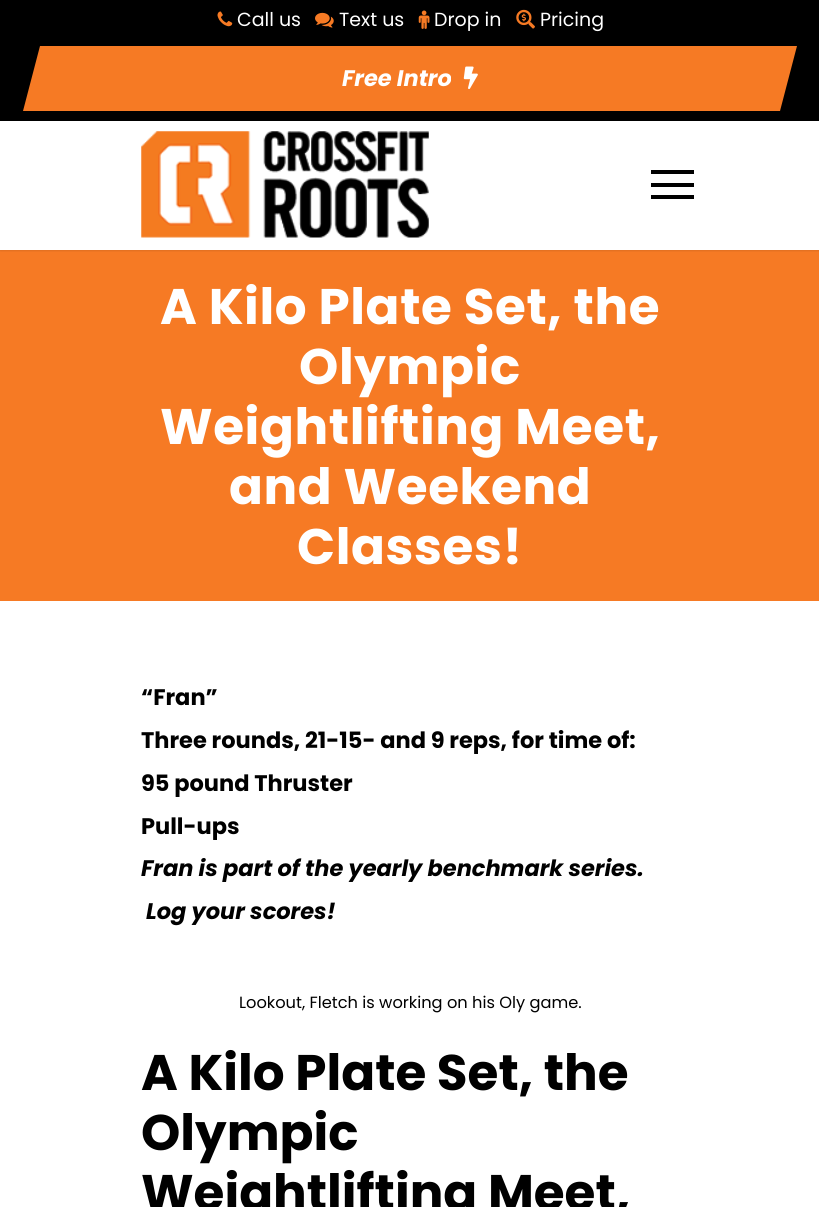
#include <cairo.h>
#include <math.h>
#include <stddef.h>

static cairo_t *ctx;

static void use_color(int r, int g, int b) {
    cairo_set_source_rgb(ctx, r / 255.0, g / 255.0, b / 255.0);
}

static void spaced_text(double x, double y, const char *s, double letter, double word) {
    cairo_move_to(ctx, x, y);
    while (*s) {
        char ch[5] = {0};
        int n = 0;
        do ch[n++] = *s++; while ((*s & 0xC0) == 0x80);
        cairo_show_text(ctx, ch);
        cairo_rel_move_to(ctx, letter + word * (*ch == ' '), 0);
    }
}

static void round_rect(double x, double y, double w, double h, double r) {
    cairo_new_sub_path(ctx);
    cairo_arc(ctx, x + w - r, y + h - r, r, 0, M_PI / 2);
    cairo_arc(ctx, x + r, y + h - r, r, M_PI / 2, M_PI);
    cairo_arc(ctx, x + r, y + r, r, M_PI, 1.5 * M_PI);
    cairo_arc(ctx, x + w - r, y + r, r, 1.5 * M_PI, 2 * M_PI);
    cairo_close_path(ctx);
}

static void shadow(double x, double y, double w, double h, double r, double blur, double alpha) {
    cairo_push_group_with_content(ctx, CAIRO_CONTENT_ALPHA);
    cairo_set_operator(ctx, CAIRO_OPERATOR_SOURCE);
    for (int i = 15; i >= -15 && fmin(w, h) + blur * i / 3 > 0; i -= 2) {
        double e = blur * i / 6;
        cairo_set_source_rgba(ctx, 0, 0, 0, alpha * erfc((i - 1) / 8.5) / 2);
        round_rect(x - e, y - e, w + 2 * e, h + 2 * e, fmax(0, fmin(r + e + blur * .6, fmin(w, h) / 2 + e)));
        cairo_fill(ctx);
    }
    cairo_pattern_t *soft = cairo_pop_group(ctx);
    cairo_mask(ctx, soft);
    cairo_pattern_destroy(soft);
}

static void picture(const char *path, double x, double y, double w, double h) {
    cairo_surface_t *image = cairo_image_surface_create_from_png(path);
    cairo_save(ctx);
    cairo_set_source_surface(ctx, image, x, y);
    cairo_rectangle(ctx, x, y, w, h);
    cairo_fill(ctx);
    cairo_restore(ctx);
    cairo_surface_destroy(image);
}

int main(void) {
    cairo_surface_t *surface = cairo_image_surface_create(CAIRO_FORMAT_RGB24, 819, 1207);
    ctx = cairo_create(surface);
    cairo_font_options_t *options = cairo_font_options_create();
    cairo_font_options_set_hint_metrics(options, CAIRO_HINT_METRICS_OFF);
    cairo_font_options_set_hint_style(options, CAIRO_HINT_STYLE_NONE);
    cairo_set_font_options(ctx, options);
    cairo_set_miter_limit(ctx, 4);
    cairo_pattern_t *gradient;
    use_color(255, 255, 255);
    cairo_paint(ctx);
    use_color(246, 122, 36);
    cairo_rectangle(ctx, 0, 250, 819, 351);
    cairo_fill(ctx);
    cairo_save(ctx);
    cairo_rectangle(ctx, 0, 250, 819, 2);
    cairo_clip(ctx);
    use_color(0, 0, 0);
    shadow(0, 1, 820, 250, 0, 1, 0.1);
    cairo_restore(ctx);
    picture("img1.png", 141, 131, 288, 107);
    use_color(0, 0, 0);
    cairo_rectangle(ctx, 651, 170, 43, 4);
    cairo_fill(ctx);
    cairo_rectangle(ctx, 651, 183, 43, 4);
    cairo_fill(ctx);
    cairo_rectangle(ctx, 651, 195, 43, 4);
    cairo_fill(ctx);
    cairo_rectangle(ctx, 0, 0, 819, 121);
    cairo_fill(ctx);
    picture("img2.png", 217, 11, 16, 16);
    cairo_select_font_face(ctx, "Poppins", CAIRO_FONT_SLANT_NORMAL, CAIRO_FONT_WEIGHT_NORMAL);
    cairo_set_font_size(ctx, 19);
    use_color(255, 255, 255);
    cairo_move_to(ctx, 237, 26);
    cairo_show_text(ctx, "Call us");
    picture("img3.png", 315, 12, 19, 16);
    cairo_move_to(ctx, 339, 26);
    cairo_show_text(ctx, "Text us");
    picture("img4.png", 418, 10, 12, 19);
    cairo_move_to(ctx, 434, 26);
    cairo_show_text(ctx, "Drop in");
    picture("img5.png", 516, 9, 19, 20);
    cairo_move_to(ctx, 540, 26);
    cairo_show_text(ctx, "Pricing");
    gradient = cairo_pattern_create_linear(-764, 79, 789, 79);
    cairo_pattern_add_color_stop_rgba(gradient, 0, 0.133, 0.133, 0.133, 1);
    cairo_pattern_add_color_stop_rgba(gradient, 0.5, 0.267, 0.267, 0.267, 1);
    cairo_pattern_add_color_stop_rgba(gradient, 0.5, 0.965, 0.478, 0.141, 1);
    cairo_pattern_add_color_stop_rgba(gradient, 1, 0.965, 0.478, 0.141, 1);
    cairo_set_source(ctx, gradient);
    cairo_pattern_destroy(gradient);
    cairo_new_path(ctx);
    cairo_move_to(ctx, 40, 46);
    cairo_line_to(ctx, 797, 46);
    cairo_line_to(ctx, 780, 111);
    cairo_line_to(ctx, 23, 111);
    cairo_close_path(ctx);
    cairo_fill(ctx);
    cairo_select_font_face(ctx, "Poppins", CAIRO_FONT_SLANT_ITALIC, CAIRO_FONT_WEIGHT_BOLD);
    cairo_set_font_size(ctx, 22.5);
    use_color(255, 255, 255);
    cairo_move_to(ctx, 342, 86);
    cairo_show_text(ctx, "Free Intro");
    picture("img6.png", 463, 66, 15, 23);
    cairo_select_font_face(ctx, "Poppins", CAIRO_FONT_SLANT_NORMAL, CAIRO_FONT_WEIGHT_BOLD);
    cairo_set_font_size(ctx, 50);
    spaced_text(160, 324, "A Kilo Plate Set, the", 0.6, 0);
    spaced_text(299, 384, "Olympic", 0.6, 0);
    spaced_text(160, 444, "Weightlifting Meet,", 0.6, 0);
    spaced_text(229, 504, "and Weekend", 0.6, 0);
    spaced_text(297, 564, "Classes!", 0.6, 0);
    cairo_set_font_size(ctx, 22.5);
    use_color(0, 0, 0);
    cairo_move_to(ctx, 141, 705);
    cairo_show_text(ctx, "“Fran”");
    cairo_move_to(ctx, 141, 748);
    cairo_show_text(ctx, "Three rounds, 21-15- and 9 reps, for time of:");
    cairo_move_to(ctx, 141, 791);
    cairo_show_text(ctx, "95 pound Thruster");
    cairo_move_to(ctx, 141, 834);
    cairo_show_text(ctx, "Pull-ups");
    cairo_select_font_face(ctx, "Poppins", CAIRO_FONT_SLANT_ITALIC, CAIRO_FONT_WEIGHT_BOLD);
    cairo_move_to(ctx, 141, 876);
    cairo_show_text(ctx, "Fran is part of the yearly benchmark series.");
    cairo_move_to(ctx, 146, 919);
    cairo_show_text(ctx, "Log your scores!");
    cairo_select_font_face(ctx, "Poppins", CAIRO_FONT_SLANT_NORMAL, CAIRO_FONT_WEIGHT_NORMAL);
    cairo_set_font_size(ctx, 16.25);
    cairo_move_to(ctx, 239, 1008);
    cairo_show_text(ctx, "Lookout, Fletch is working on his Oly game.");
    cairo_select_font_face(ctx, "Poppins", CAIRO_FONT_SLANT_NORMAL, CAIRO_FONT_WEIGHT_BOLD);
    cairo_set_font_size(ctx, 50);
    cairo_move_to(ctx, 141, 1090);
    cairo_show_text(ctx, "A Kilo Plate Set, the");
    cairo_move_to(ctx, 141, 1150);
    cairo_show_text(ctx, "Olympic");
    cairo_move_to(ctx, 141, 1210);
    cairo_show_text(ctx, "Weightlifting Meet,");
    cairo_surface_write_to_png(surface, "result.png");
    cairo_font_options_destroy(options);
    cairo_destroy(ctx);
    cairo_surface_destroy(surface);
    return 0;
}
